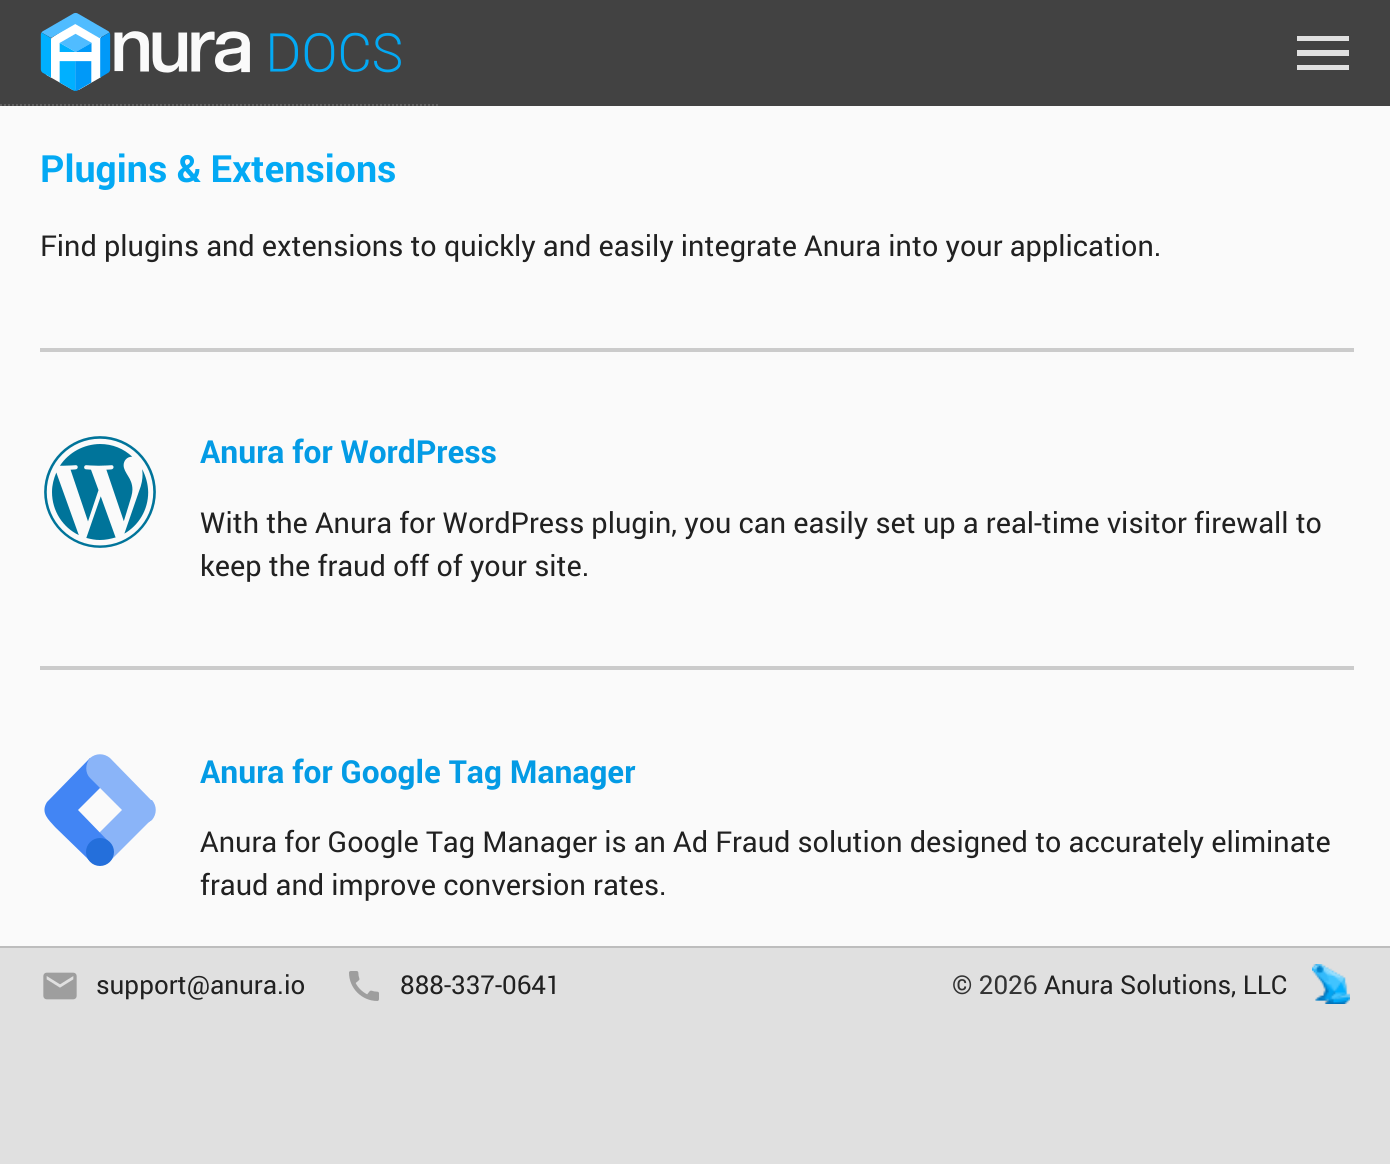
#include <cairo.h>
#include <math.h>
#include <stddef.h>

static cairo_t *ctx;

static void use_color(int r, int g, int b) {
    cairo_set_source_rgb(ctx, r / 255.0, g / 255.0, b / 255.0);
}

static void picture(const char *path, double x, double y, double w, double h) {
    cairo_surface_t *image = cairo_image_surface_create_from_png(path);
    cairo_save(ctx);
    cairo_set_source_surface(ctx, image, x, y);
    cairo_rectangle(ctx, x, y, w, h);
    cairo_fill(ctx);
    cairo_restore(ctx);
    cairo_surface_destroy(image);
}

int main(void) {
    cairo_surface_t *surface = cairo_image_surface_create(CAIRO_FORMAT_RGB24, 1390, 1164);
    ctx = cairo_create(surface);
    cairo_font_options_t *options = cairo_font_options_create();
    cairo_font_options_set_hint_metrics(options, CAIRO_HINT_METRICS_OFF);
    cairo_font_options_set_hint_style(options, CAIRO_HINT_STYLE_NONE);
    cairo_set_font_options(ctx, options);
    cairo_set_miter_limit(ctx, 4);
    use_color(224, 224, 224);
    cairo_paint(ctx);
    use_color(66, 66, 66);
    cairo_rectangle(ctx, 0, 0, 1390, 106);
    cairo_fill(ctx);
    picture("img1.png", 40, 12, 361, 79);
    cairo_new_path(ctx);
    cairo_move_to(ctx, 0, 105);
    cairo_line_to(ctx, 440, 105);
    use_color(97, 97, 97);
    cairo_set_dash(ctx, (double[]){2, 2}, 2, 0);
    cairo_stroke(ctx);
    use_color(224, 224, 224);
    cairo_new_path(ctx);
    cairo_move_to(ctx, 1297, 70);
    cairo_line_to(ctx, 1349, 70);
    cairo_line_to(ctx, 1349, 65);
    cairo_line_to(ctx, 1297, 65);
    cairo_close_path(ctx);
    cairo_move_to(ctx, 1297, 56);
    cairo_line_to(ctx, 1349, 56);
    cairo_line_to(ctx, 1349, 50);
    cairo_line_to(ctx, 1297, 50);
    cairo_close_path(ctx);
    cairo_move_to(ctx, 1297, 36);
    cairo_line_to(ctx, 1297, 41);
    cairo_line_to(ctx, 1349, 41);
    cairo_line_to(ctx, 1349, 36);
    cairo_close_path(ctx);
    cairo_fill(ctx);
    use_color(250, 250, 250);
    cairo_rectangle(ctx, 0, 106, 1390, 840);
    cairo_fill(ctx);
    cairo_select_font_face(ctx, "Roboto", CAIRO_FONT_SLANT_NORMAL, CAIRO_FONT_WEIGHT_BOLD);
    cairo_set_font_size(ctx, 37.5);
    use_color(3, 169, 244);
    cairo_move_to(ctx, 40, 182);
    cairo_show_text(ctx, "Plugins & Extensions");
    cairo_select_font_face(ctx, "Roboto", CAIRO_FONT_SLANT_NORMAL, CAIRO_FONT_WEIGHT_NORMAL);
    cairo_set_font_size(ctx, 28.8);
    use_color(33, 33, 33);
    cairo_move_to(ctx, 40, 256);
    cairo_show_text(ctx, "Find plugins and extensions to quickly and easily integrate Anura into your application.");
    use_color(203, 203, 203);
    cairo_rectangle(ctx, 40, 348, 1314, 4);
    cairo_fill(ctx);
    picture("img2.png", 44, 436, 112, 112);
    cairo_select_font_face(ctx, "Roboto", CAIRO_FONT_SLANT_NORMAL, CAIRO_FONT_WEIGHT_BOLD);
    cairo_set_font_size(ctx, 31.75);
    use_color(3, 155, 229);
    cairo_move_to(ctx, 200, 463);
    cairo_show_text(ctx, "Anura for WordPress");
    cairo_select_font_face(ctx, "Roboto", CAIRO_FONT_SLANT_NORMAL, CAIRO_FONT_WEIGHT_NORMAL);
    cairo_set_font_size(ctx, 28.8);
    use_color(33, 33, 33);
    cairo_move_to(ctx, 200, 533);
    cairo_show_text(ctx, "With the Anura for WordPress plugin, you can easily set up a real-time visitor firewall to");
    cairo_move_to(ctx, 200, 576);
    cairo_show_text(ctx, "keep the fraud off of your site.");
    use_color(203, 203, 203);
    cairo_rectangle(ctx, 40, 666, 1314, 4);
    cairo_fill(ctx);
    use_color(138, 180, 248);
    cairo_new_path(ctx);
    cairo_move_to(ctx, 110, 861);
    cairo_line_to(ctx, 90, 842);
    cairo_line_to(ctx, 132, 800);
    cairo_line_to(ctx, 151, 820);
    cairo_close_path(ctx);
    cairo_fill(ctx);
    use_color(66, 133, 244);
    cairo_new_path(ctx);
    cairo_move_to(ctx, 110, 778);
    cairo_line_to(ctx, 90, 758);
    cairo_line_to(ctx, 47, 802);
    cairo_curve_to(ctx, 40, 813, 49, 820, 55, 827);
    cairo_line_to(ctx, 90, 861);
    cairo_line_to(ctx, 109, 842);
    cairo_line_to(ctx, 78, 810);
    cairo_close_path(ctx);
    cairo_fill(ctx);
    use_color(138, 180, 248);
    cairo_new_path(ctx);
    cairo_move_to(ctx, 151, 800);
    cairo_line_to(ctx, 110, 758);
    cairo_curve_to(ctx, 104, 753, 96, 753, 90, 758);
    cairo_curve_to(ctx, 85, 764, 85, 773, 90, 778);
    cairo_line_to(ctx, 132, 820);
    cairo_curve_to(ctx, 137, 825, 146, 825, 152, 820);
    cairo_curve_to(ctx, 157, 814, 157, 806, 152, 800);
    cairo_close_path(ctx);
    cairo_fill(ctx);
    use_color(36, 111, 219);
    cairo_arc(ctx, 100, 852, 14, 0, 2 * M_PI);
    cairo_fill(ctx);
    cairo_select_font_face(ctx, "Roboto", CAIRO_FONT_SLANT_NORMAL, CAIRO_FONT_WEIGHT_BOLD);
    cairo_set_font_size(ctx, 31.75);
    use_color(3, 155, 229);
    cairo_move_to(ctx, 200, 783);
    cairo_show_text(ctx, "Anura for Google Tag Manager");
    cairo_select_font_face(ctx, "Roboto", CAIRO_FONT_SLANT_NORMAL, CAIRO_FONT_WEIGHT_NORMAL);
    cairo_set_font_size(ctx, 28.8);
    use_color(33, 33, 33);
    cairo_move_to(ctx, 200, 852);
    cairo_show_text(ctx, "Anura for Google Tag Manager is an Ad Fraud solution designed to accurately eliminate");
    cairo_move_to(ctx, 200, 895);
    cairo_show_text(ctx, "fraud and improve conversion rates.");
    use_color(189, 189, 189);
    cairo_rectangle(ctx, 0, 946, 1390, 2);
    cairo_fill(ctx);
    picture("img3.png", 43, 972, 34, 28);
    cairo_set_font_size(ctx, 26);
    use_color(33, 33, 33);
    cairo_move_to(ctx, 96, 994);
    cairo_show_text(ctx, "support@anura.io");
    picture("img4.png", 349, 971, 30, 30);
    cairo_move_to(ctx, 400, 994);
    cairo_show_text(ctx, "888-337-0641");
    picture("img5.png", 1312, 964, 38, 40);
    use_color(51, 51, 51);
    cairo_move_to(ctx, 952, 994);
    cairo_show_text(ctx, "© 2026");
    use_color(33, 33, 33);
    cairo_move_to(ctx, 1044, 994);
    cairo_show_text(ctx, "Anura Solutions, LLC");
    cairo_surface_write_to_png(surface, "result.png");
    cairo_font_options_destroy(options);
    cairo_destroy(ctx);
    cairo_surface_destroy(surface);
    return 0;
}
